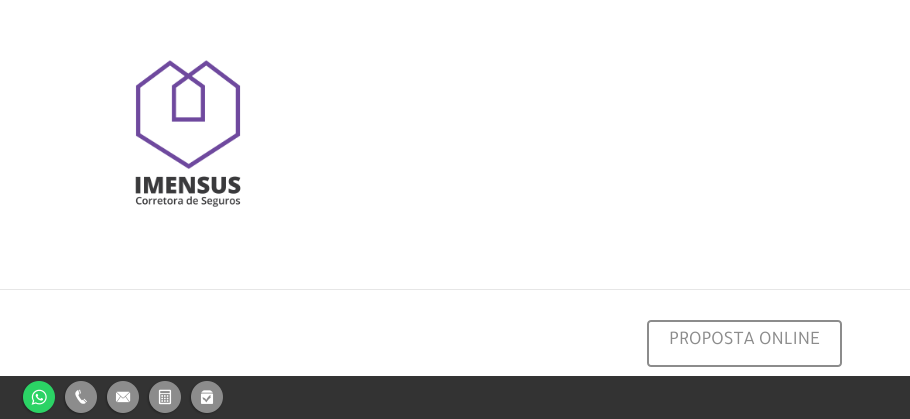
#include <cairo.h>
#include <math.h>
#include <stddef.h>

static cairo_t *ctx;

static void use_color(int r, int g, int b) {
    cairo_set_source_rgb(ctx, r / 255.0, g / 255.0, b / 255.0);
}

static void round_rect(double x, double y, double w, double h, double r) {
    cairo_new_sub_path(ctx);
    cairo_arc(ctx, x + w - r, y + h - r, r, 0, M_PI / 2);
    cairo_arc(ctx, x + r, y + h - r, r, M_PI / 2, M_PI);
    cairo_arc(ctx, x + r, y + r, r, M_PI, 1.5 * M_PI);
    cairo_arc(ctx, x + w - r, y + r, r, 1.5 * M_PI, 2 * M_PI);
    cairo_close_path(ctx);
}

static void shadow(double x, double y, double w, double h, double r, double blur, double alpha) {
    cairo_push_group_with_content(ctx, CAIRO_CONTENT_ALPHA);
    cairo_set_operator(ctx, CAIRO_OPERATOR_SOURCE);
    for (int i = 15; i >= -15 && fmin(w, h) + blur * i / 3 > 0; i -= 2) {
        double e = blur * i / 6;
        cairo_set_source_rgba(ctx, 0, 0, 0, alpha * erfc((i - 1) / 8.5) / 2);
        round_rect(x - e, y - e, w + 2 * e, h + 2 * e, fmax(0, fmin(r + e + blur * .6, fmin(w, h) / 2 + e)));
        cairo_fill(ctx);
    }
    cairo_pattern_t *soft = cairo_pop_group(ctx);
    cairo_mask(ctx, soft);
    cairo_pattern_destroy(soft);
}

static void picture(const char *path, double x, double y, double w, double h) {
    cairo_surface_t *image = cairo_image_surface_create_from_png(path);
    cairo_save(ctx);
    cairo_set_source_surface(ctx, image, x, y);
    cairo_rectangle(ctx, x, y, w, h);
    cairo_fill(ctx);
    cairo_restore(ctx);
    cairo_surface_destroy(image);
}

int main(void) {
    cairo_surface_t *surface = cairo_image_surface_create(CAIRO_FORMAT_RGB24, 910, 419);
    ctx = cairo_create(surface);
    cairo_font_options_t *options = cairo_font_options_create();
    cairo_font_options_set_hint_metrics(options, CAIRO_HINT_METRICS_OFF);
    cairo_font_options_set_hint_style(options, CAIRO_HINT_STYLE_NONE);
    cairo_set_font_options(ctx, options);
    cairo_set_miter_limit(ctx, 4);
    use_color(255, 255, 255);
    cairo_paint(ctx);
    use_color(230, 230, 230);
    cairo_rectangle(ctx, 0, 289, 910, 1);
    cairo_fill(ctx);
    picture("img1.png", 135, 60, 106, 147);
    round_rect(648, 321, 193, 45, 3);
    use_color(140, 140, 140);
    cairo_stroke(ctx);
    cairo_select_font_face(ctx, "Tajawal", CAIRO_FONT_SLANT_NORMAL, CAIRO_FONT_WEIGHT_NORMAL);
    cairo_set_font_size(ctx, 19.25);
    cairo_move_to(ctx, 669, 344);
    cairo_show_text(ctx, "PROPOSTA ONLINE");
    use_color(51, 51, 51);
    cairo_rectangle(ctx, 0, 376, 910, 43);
    cairo_fill(ctx);
    use_color(0, 0, 0);
    shadow(22, 382, 32, 32, 16, 1, 0.3);
    use_color(43, 211, 101);
    cairo_arc(ctx, 39, 397, 16, 0, 2 * M_PI);
    cairo_fill(ctx);
    picture("img2.png", 31, 389, 16, 16);
    use_color(0, 0, 0);
    shadow(64, 382, 32, 32, 16, 1, 0.3);
    use_color(140, 140, 140);
    cairo_arc(ctx, 81, 397, 16, 0, 2 * M_PI);
    cairo_fill(ctx);
    picture("img3.png", 75, 389, 12, 15);
    use_color(0, 0, 0);
    shadow(106, 382, 32, 32, 16, 1, 0.3);
    use_color(140, 140, 140);
    cairo_arc(ctx, 123, 397, 16, 0, 2 * M_PI);
    cairo_fill(ctx);
    picture("img4.png", 115, 391, 16, 12);
    use_color(0, 0, 0);
    shadow(148, 382, 32, 32, 16, 1, 0.3);
    use_color(140, 140, 140);
    cairo_arc(ctx, 165, 397, 16, 0, 2 * M_PI);
    cairo_fill(ctx);
    picture("img5.png", 158, 389, 14, 16);
    use_color(0, 0, 0);
    shadow(190, 382, 32, 32, 16, 1, 0.3);
    use_color(140, 140, 140);
    cairo_arc(ctx, 207, 397, 16, 0, 2 * M_PI);
    cairo_fill(ctx);
    picture("img6.png", 200, 390, 14, 14);
    cairo_surface_write_to_png(surface, "result.png");
    cairo_font_options_destroy(options);
    cairo_destroy(ctx);
    cairo_surface_destroy(surface);
    return 0;
}
